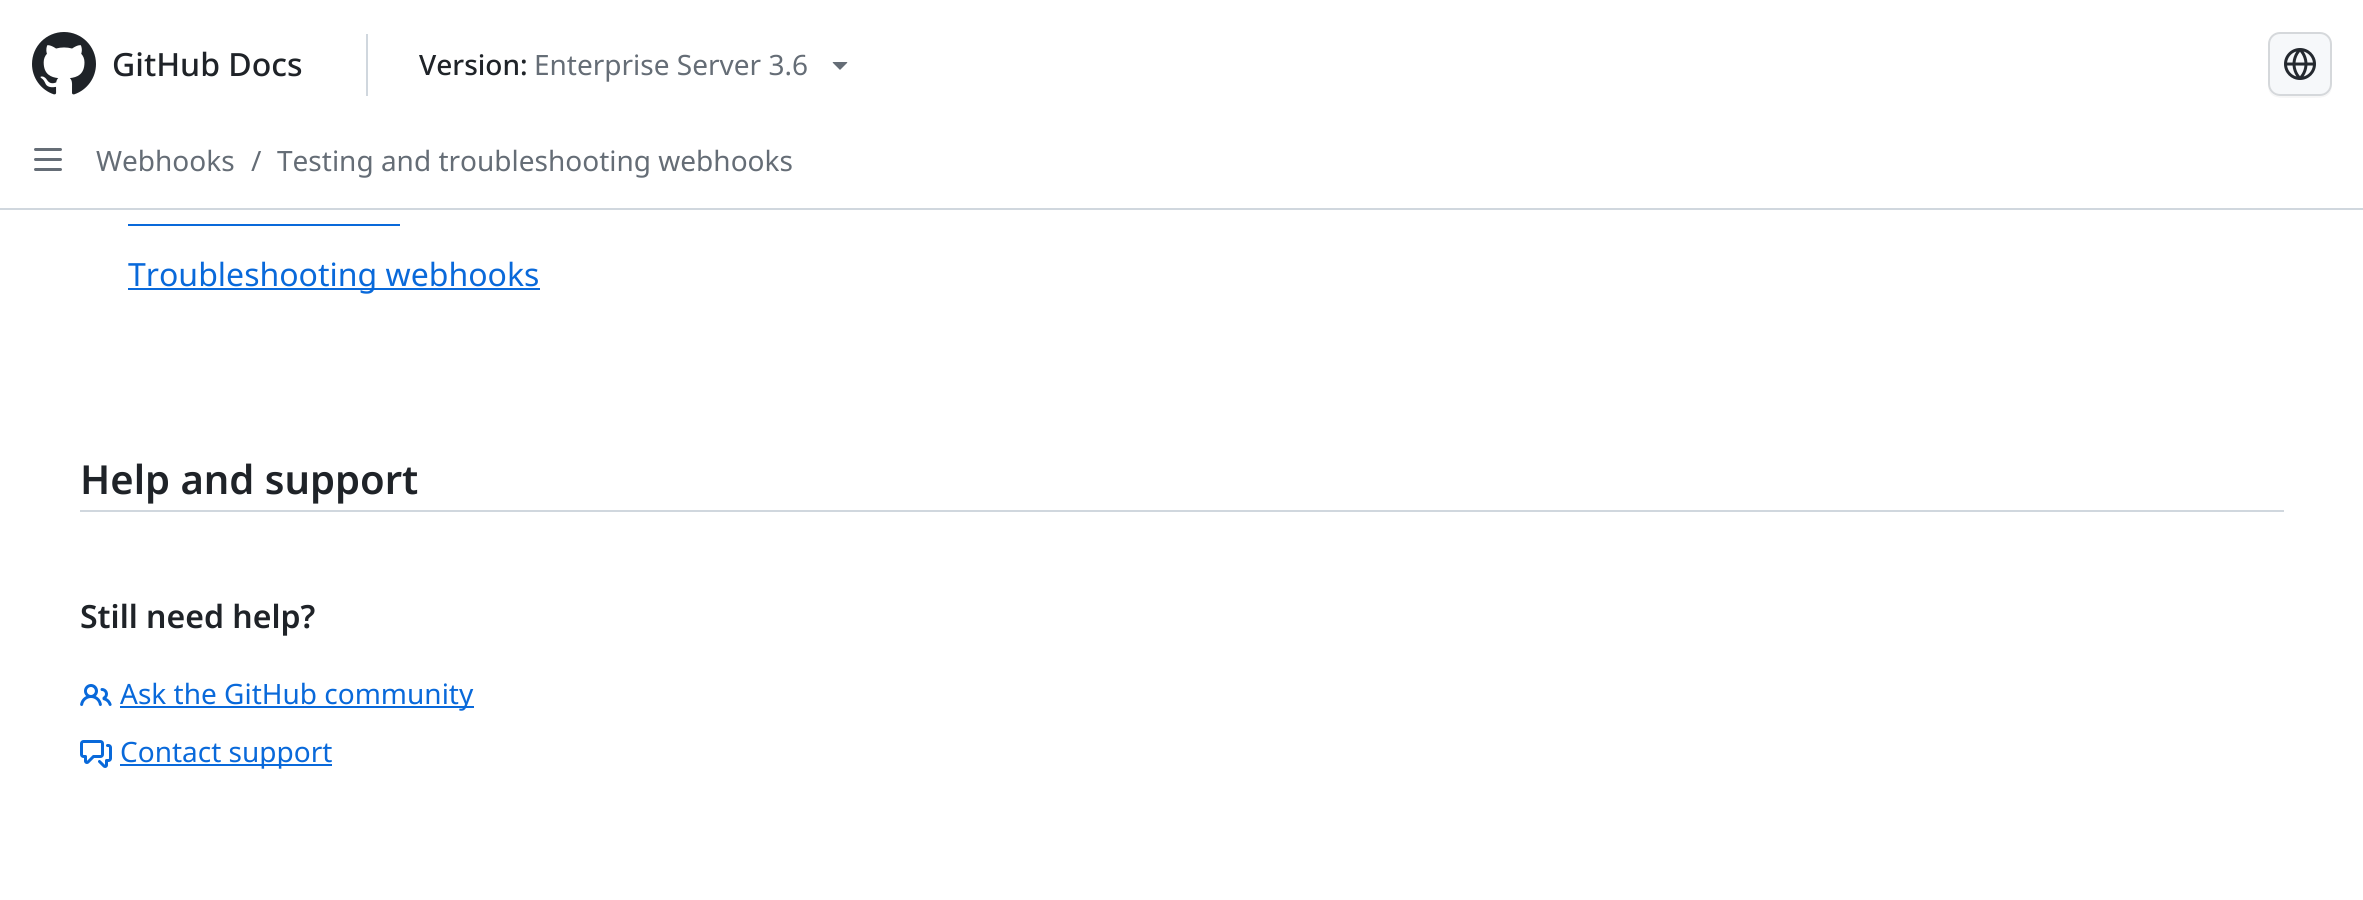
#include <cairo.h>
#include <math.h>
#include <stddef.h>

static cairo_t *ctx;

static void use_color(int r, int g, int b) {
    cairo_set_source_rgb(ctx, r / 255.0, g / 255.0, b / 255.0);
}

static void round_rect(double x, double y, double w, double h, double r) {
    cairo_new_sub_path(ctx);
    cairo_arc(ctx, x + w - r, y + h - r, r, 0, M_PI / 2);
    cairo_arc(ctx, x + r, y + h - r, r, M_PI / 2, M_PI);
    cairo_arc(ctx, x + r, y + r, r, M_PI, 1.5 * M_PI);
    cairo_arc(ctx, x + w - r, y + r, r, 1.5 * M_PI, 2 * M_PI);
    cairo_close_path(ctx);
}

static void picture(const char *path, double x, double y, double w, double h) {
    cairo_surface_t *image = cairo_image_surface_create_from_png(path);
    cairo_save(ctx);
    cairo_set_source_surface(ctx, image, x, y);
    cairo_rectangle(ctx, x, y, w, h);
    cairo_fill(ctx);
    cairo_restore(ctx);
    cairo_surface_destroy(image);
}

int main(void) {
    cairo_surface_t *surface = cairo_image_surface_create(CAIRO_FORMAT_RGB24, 2363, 900);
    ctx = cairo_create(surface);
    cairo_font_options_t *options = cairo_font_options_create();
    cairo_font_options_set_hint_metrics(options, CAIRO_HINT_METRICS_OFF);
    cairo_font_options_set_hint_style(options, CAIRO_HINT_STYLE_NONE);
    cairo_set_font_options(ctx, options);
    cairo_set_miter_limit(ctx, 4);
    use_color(255, 255, 255);
    cairo_paint(ctx);
    use_color(208, 215, 222);
    cairo_rectangle(ctx, 0, 208, 2363, 2);
    cairo_fill(ctx);
    picture("img1.png", 32, 32, 64, 63);
    cairo_select_font_face(ctx, "Noto Sans Medium", CAIRO_FONT_SLANT_NORMAL, CAIRO_FONT_WEIGHT_NORMAL);
    cairo_set_font_size(ctx, 32);
    use_color(31, 35, 40);
    cairo_move_to(ctx, 112, 76);
    cairo_show_text(ctx, "GitHub Docs");
    use_color(208, 215, 222);
    cairo_rectangle(ctx, 366, 34, 2, 62);
    cairo_fill(ctx);
    cairo_set_font_size(ctx, 28);
    use_color(31, 35, 40);
    cairo_move_to(ctx, 419, 75);
    cairo_show_text(ctx, "Version:");
    cairo_select_font_face(ctx, "Noto Sans", CAIRO_FONT_SLANT_NORMAL, CAIRO_FONT_WEIGHT_NORMAL);
    use_color(101, 109, 118);
    cairo_move_to(ctx, 534, 75);
    cairo_show_text(ctx, "Enterprise Server 3.6");
    picture("img2.png", 832, 62, 16, 8);
    use_color(246, 246, 246);
    cairo_new_path(ctx);
    cairo_move_to(ctx, 2268, 84);
    cairo_curve_to(ctx, 2268, 97, 2276, 98, 2287, 98);
    cairo_line_to(ctx, 2313, 98);
    cairo_curve_to(ctx, 2324, 98, 2332, 97, 2332, 84);
    cairo_curve_to(ctx, 2332, 91, 2327, 96, 2320, 96);
    cairo_line_to(ctx, 2280, 96);
    cairo_curve_to(ctx, 2273, 96, 2268, 91, 2268, 84);
    cairo_close_path(ctx);
    cairo_fill(ctx);
    use_color(246, 248, 250);
    round_rect(2268, 32, 64, 64, 12);
    cairo_fill(ctx);
    round_rect(2269, 33, 62, 62, 11);
    cairo_set_source_rgba(ctx, 0.122, 0.137, 0.157, 0.15);
    cairo_stroke(ctx);
    picture("img3.png", 2284, 48, 32, 32);
    picture("img4.png", 34, 148, 28, 23);
    use_color(101, 109, 118);
    cairo_move_to(ctx, 96, 171);
    cairo_show_text(ctx, "Webhooks");
    cairo_move_to(ctx, 251, 171);
    cairo_show_text(ctx, "/");
    cairo_move_to(ctx, 277, 171);
    cairo_show_text(ctx, "Testing and troubleshooting webhooks");
    use_color(9, 105, 218);
    cairo_rectangle(ctx, 128, 224, 272, 2);
    cairo_fill(ctx);
    cairo_rectangle(ctx, 128, 288, 412, 2);
    cairo_fill(ctx);
    cairo_set_font_size(ctx, 32);
    cairo_move_to(ctx, 128, 286);
    cairo_show_text(ctx, "Troubleshooting webhooks");
    cairo_select_font_face(ctx, "Noto Sans SemiBold", CAIRO_FONT_SLANT_NORMAL, CAIRO_FONT_WEIGHT_NORMAL);
    cairo_set_font_size(ctx, 40);
    use_color(31, 35, 40);
    cairo_move_to(ctx, 80, 494);
    cairo_show_text(ctx, "Help and support");
    use_color(208, 215, 222);
    cairo_rectangle(ctx, 80, 510, 2204, 2);
    cairo_fill(ctx);
    cairo_set_font_size(ctx, 32);
    use_color(31, 35, 40);
    cairo_move_to(ctx, 80, 628);
    cairo_show_text(ctx, "Still need help?");
    picture("img5.png", 80, 684, 32, 22);
    use_color(9, 105, 218);
    cairo_rectangle(ctx, 120, 706, 354, 2);
    cairo_fill(ctx);
    cairo_select_font_face(ctx, "Noto Sans", CAIRO_FONT_SLANT_NORMAL, CAIRO_FONT_WEIGHT_NORMAL);
    cairo_set_font_size(ctx, 28);
    cairo_move_to(ctx, 120, 704);
    cairo_show_text(ctx, "Ask the GitHub community");
    picture("img6.png", 80, 740, 32, 28);
    cairo_rectangle(ctx, 120, 764, 212, 2);
    cairo_fill(ctx);
    cairo_move_to(ctx, 120, 762);
    cairo_show_text(ctx, "Contact support");
    cairo_surface_write_to_png(surface, "result.png");
    cairo_font_options_destroy(options);
    cairo_destroy(ctx);
    cairo_surface_destroy(surface);
    return 0;
}
